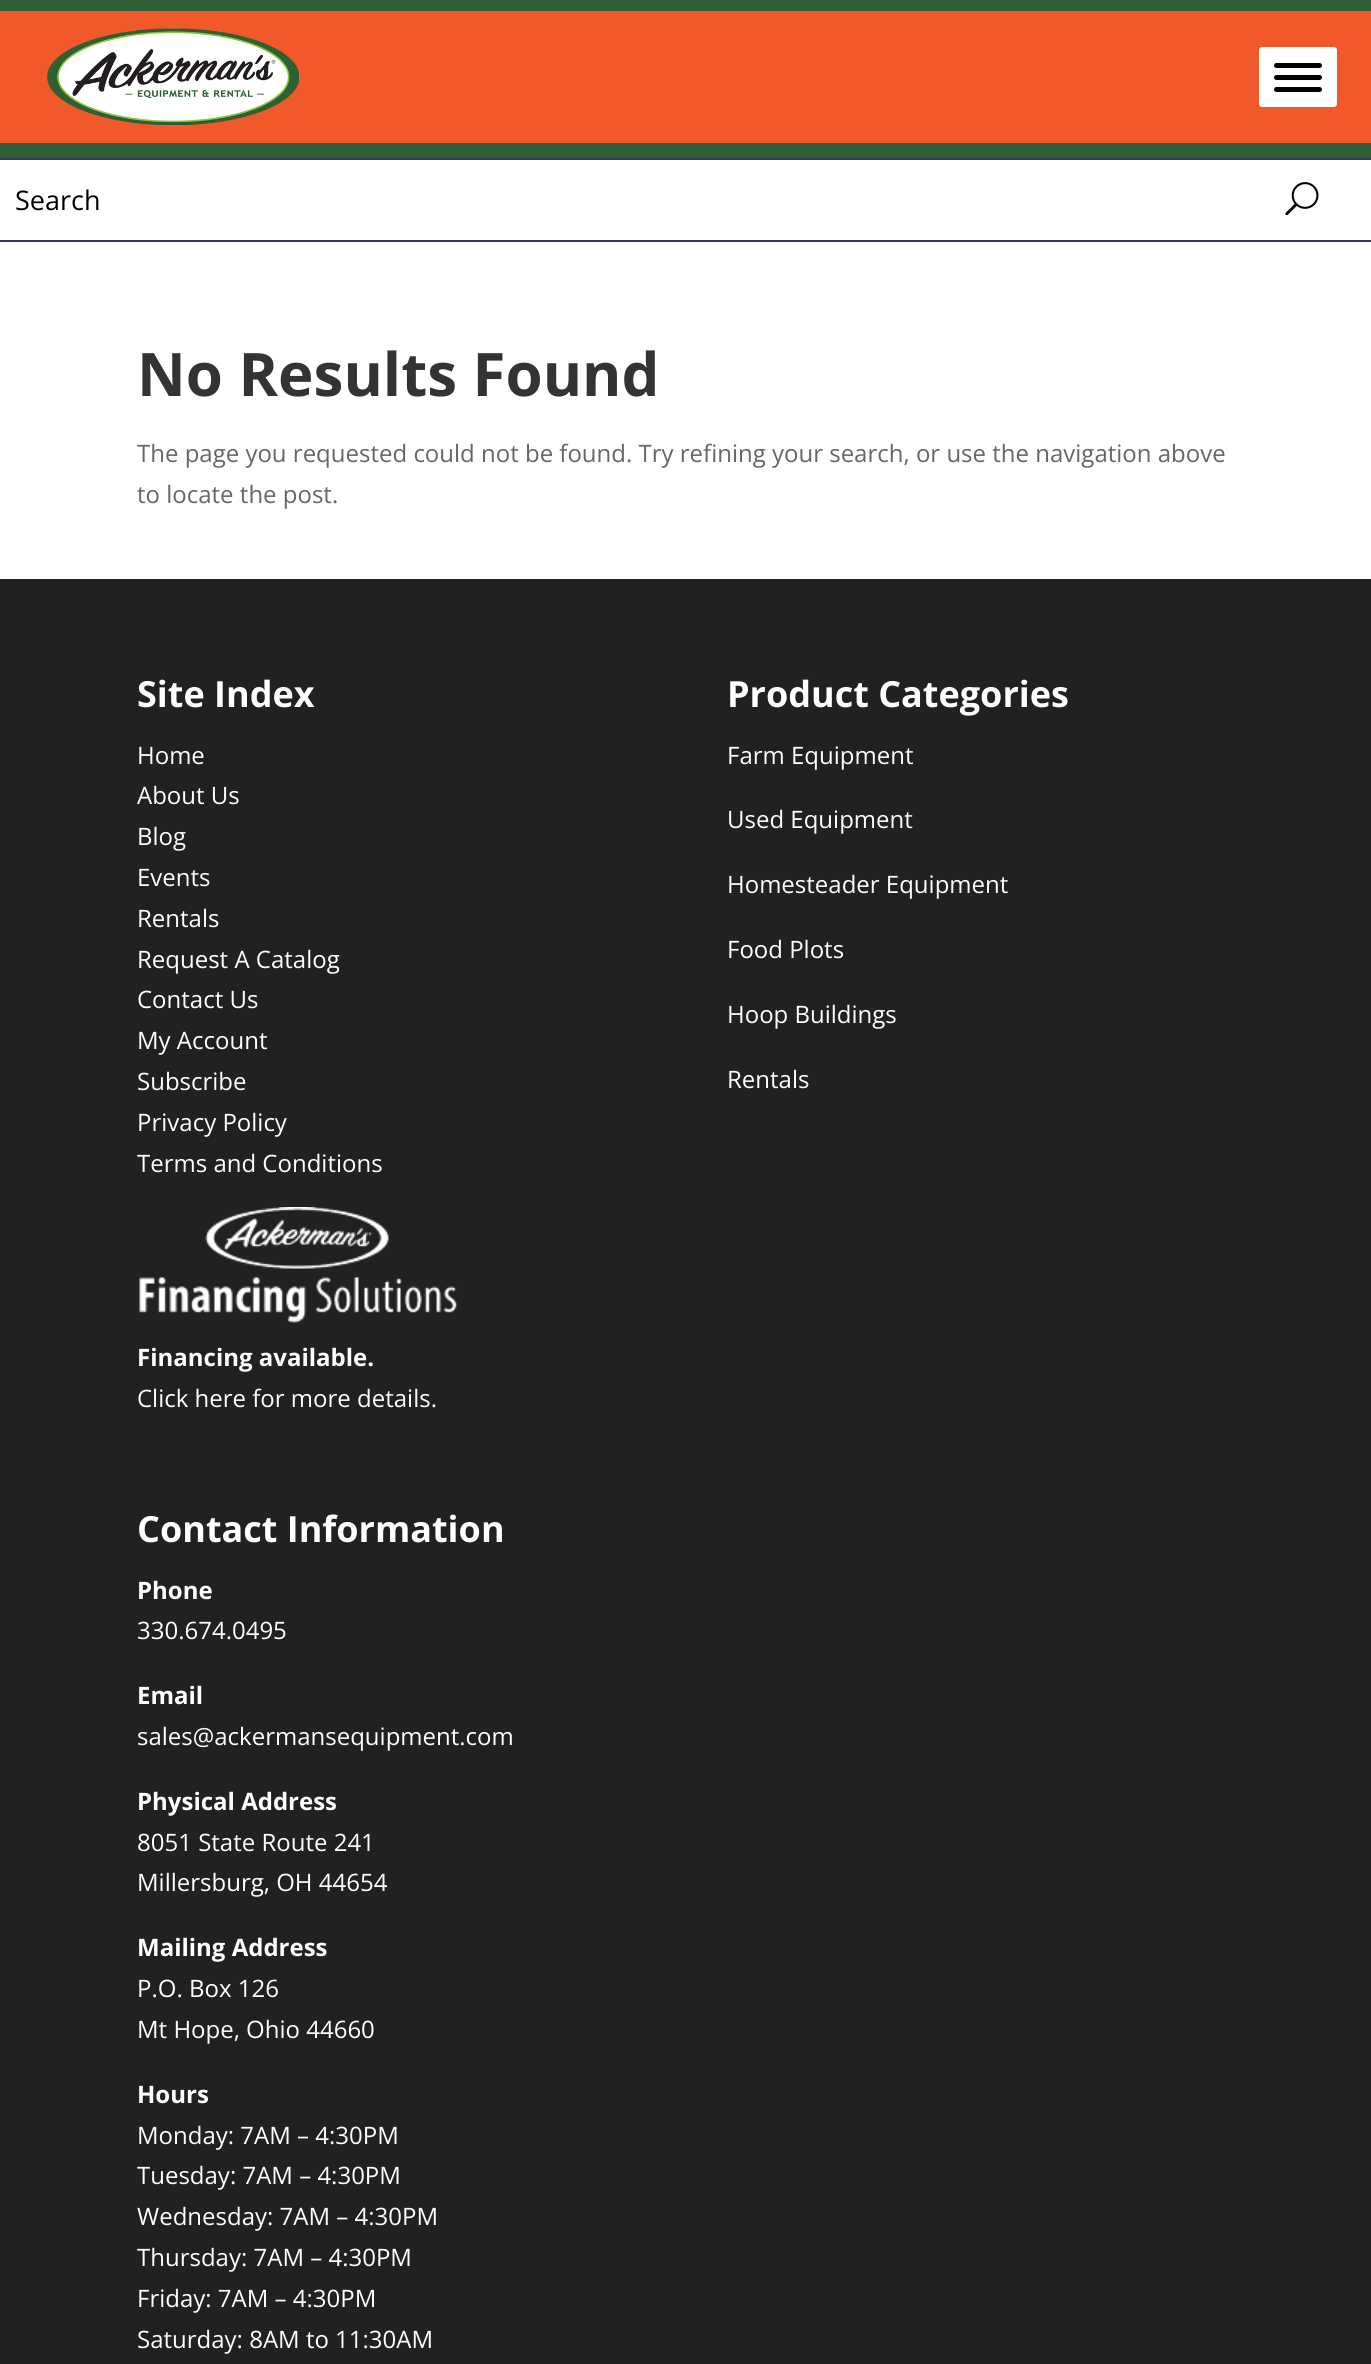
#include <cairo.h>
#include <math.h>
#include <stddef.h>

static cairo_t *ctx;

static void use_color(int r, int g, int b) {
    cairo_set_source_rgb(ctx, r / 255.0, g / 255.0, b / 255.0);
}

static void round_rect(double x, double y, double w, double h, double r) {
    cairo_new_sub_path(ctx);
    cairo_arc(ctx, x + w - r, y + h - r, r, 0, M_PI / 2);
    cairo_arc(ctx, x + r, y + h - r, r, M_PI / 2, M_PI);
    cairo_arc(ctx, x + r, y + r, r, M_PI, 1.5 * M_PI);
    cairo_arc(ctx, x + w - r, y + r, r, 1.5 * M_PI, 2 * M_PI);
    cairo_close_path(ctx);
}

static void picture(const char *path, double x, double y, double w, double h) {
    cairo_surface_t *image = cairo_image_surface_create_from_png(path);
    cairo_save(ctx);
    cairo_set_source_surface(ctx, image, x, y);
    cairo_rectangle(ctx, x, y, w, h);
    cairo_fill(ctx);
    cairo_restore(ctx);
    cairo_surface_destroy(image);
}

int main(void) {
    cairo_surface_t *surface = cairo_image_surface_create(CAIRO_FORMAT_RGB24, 1371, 2364);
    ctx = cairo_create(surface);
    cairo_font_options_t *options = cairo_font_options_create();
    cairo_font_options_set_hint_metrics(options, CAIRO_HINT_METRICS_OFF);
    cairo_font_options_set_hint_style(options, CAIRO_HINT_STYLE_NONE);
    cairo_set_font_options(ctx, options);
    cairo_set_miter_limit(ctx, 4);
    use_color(255, 255, 255);
    cairo_paint(ctx);
    use_color(241, 89, 42);
    cairo_rectangle(ctx, 0, 11, 1371, 132);
    cairo_fill(ctx);
    use_color(47, 95, 53);
    cairo_rectangle(ctx, 0, 143, 1371, 15);
    cairo_fill(ctx);
    cairo_rectangle(ctx, 0, 0, 1371, 11);
    cairo_fill(ctx);
    picture("img1.png", 47, 28, 253, 98);
    use_color(255, 255, 255);
    round_rect(1259, 47, 78, 60, 3);
    cairo_fill(ctx);
    use_color(0, 0, 0);
    round_rect(1274, 63, 48, 5, 2.5);
    cairo_fill(ctx);
    round_rect(1274, 75, 48, 5, 2.5);
    cairo_fill(ctx);
    round_rect(1274, 87, 48, 5, 2.5);
    cairo_fill(ctx);
    use_color(55, 55, 86);
    cairo_rectangle(ctx, 0, 158, 1371, 2);
    cairo_fill(ctx);
    cairo_rectangle(ctx, 0, 240, 1371, 2);
    cairo_fill(ctx);
    cairo_select_font_face(ctx, "Open Sans", CAIRO_FONT_SLANT_NORMAL, CAIRO_FONT_WEIGHT_NORMAL);
    cairo_set_font_size(ctx, 27);
    use_color(0, 0, 0);
    cairo_move_to(ctx, 15, 210);
    cairo_show_text(ctx, "Search");
    picture("img2.png", 1285, 182, 34, 34);
    cairo_select_font_face(ctx, "Open Sans", CAIRO_FONT_SLANT_NORMAL, CAIRO_FONT_WEIGHT_BOLD);
    cairo_set_font_size(ctx, 60);
    use_color(51, 51, 51);
    cairo_move_to(ctx, 137, 396);
    cairo_show_text(ctx, "No Results Found");
    cairo_select_font_face(ctx, "Open Sans", CAIRO_FONT_SLANT_NORMAL, CAIRO_FONT_WEIGHT_NORMAL);
    cairo_set_font_size(ctx, 24);
    use_color(102, 102, 102);
    cairo_move_to(ctx, 137, 462);
    cairo_show_text(ctx, "The page you requested could not be found. Try refining your search, or use the navigation above");
    cairo_move_to(ctx, 137, 503);
    cairo_show_text(ctx, "to locate the post.");
    use_color(34, 32, 33);
    cairo_rectangle(ctx, 0, 579, 1371, 1785);
    cairo_fill(ctx);
    cairo_select_font_face(ctx, "Open Sans", CAIRO_FONT_SLANT_NORMAL, CAIRO_FONT_WEIGHT_BOLD);
    cairo_set_font_size(ctx, 36);
    use_color(255, 255, 255);
    cairo_move_to(ctx, 137, 707);
    cairo_show_text(ctx, "Site Index");
    cairo_select_font_face(ctx, "Open Sans", CAIRO_FONT_SLANT_NORMAL, CAIRO_FONT_WEIGHT_NORMAL);
    cairo_set_font_size(ctx, 24);
    cairo_move_to(ctx, 137, 764);
    cairo_show_text(ctx, "Home");
    cairo_move_to(ctx, 137, 804);
    cairo_show_text(ctx, "About Us");
    cairo_move_to(ctx, 137, 845);
    cairo_show_text(ctx, "Blog");
    cairo_move_to(ctx, 137, 886);
    cairo_show_text(ctx, "Events");
    cairo_move_to(ctx, 137, 927);
    cairo_show_text(ctx, "Rentals");
    cairo_move_to(ctx, 137, 968);
    cairo_show_text(ctx, "Request A Catalog");
    cairo_move_to(ctx, 137, 1008);
    cairo_show_text(ctx, "Contact Us");
    cairo_move_to(ctx, 137, 1049);
    cairo_show_text(ctx, "My Account");
    cairo_move_to(ctx, 137, 1090);
    cairo_show_text(ctx, "Subscribe");
    cairo_move_to(ctx, 137, 1131);
    cairo_show_text(ctx, "Privacy Policy");
    cairo_move_to(ctx, 137, 1172);
    cairo_show_text(ctx, "Terms and Conditions");
    picture("img3.png", 139, 1207, 319, 116);
    cairo_select_font_face(ctx, "Open Sans", CAIRO_FONT_SLANT_NORMAL, CAIRO_FONT_WEIGHT_BOLD);
    cairo_move_to(ctx, 137, 1366);
    cairo_show_text(ctx, "Financing available.");
    cairo_select_font_face(ctx, "Open Sans", CAIRO_FONT_SLANT_NORMAL, CAIRO_FONT_WEIGHT_NORMAL);
    cairo_move_to(ctx, 137, 1407);
    cairo_show_text(ctx, "Click here for more details.");
    cairo_select_font_face(ctx, "Open Sans", CAIRO_FONT_SLANT_NORMAL, CAIRO_FONT_WEIGHT_BOLD);
    cairo_set_font_size(ctx, 36);
    cairo_move_to(ctx, 727, 707);
    cairo_show_text(ctx, "Product Categories");
    cairo_select_font_face(ctx, "Open Sans", CAIRO_FONT_SLANT_NORMAL, CAIRO_FONT_WEIGHT_NORMAL);
    cairo_set_font_size(ctx, 24);
    cairo_move_to(ctx, 727, 764);
    cairo_show_text(ctx, "Farm Equipment");
    cairo_move_to(ctx, 727, 828);
    cairo_show_text(ctx, "Used Equipment");
    cairo_move_to(ctx, 727, 893);
    cairo_show_text(ctx, "Homesteader Equipment");
    cairo_move_to(ctx, 727, 958);
    cairo_show_text(ctx, "Food Plots");
    cairo_move_to(ctx, 727, 1023);
    cairo_show_text(ctx, "Hoop Buildings");
    cairo_move_to(ctx, 727, 1088);
    cairo_show_text(ctx, "Rentals");
    cairo_select_font_face(ctx, "Open Sans", CAIRO_FONT_SLANT_NORMAL, CAIRO_FONT_WEIGHT_BOLD);
    cairo_set_font_size(ctx, 36);
    cairo_move_to(ctx, 137, 1542);
    cairo_show_text(ctx, "Contact Information");
    cairo_set_font_size(ctx, 24);
    cairo_move_to(ctx, 137, 1599);
    cairo_show_text(ctx, "Phone");
    cairo_select_font_face(ctx, "Open Sans", CAIRO_FONT_SLANT_NORMAL, CAIRO_FONT_WEIGHT_NORMAL);
    cairo_move_to(ctx, 137, 1639);
    cairo_show_text(ctx, "330.674.0495");
    cairo_select_font_face(ctx, "Open Sans", CAIRO_FONT_SLANT_NORMAL, CAIRO_FONT_WEIGHT_BOLD);
    cairo_move_to(ctx, 137, 1704);
    cairo_show_text(ctx, "Email");
    cairo_select_font_face(ctx, "Open Sans", CAIRO_FONT_SLANT_NORMAL, CAIRO_FONT_WEIGHT_NORMAL);
    cairo_move_to(ctx, 137, 1745);
    cairo_show_text(ctx, "sales@ackermansequipment.com");
    cairo_select_font_face(ctx, "Open Sans", CAIRO_FONT_SLANT_NORMAL, CAIRO_FONT_WEIGHT_BOLD);
    cairo_move_to(ctx, 137, 1810);
    cairo_show_text(ctx, "Physical Address");
    cairo_select_font_face(ctx, "Open Sans", CAIRO_FONT_SLANT_NORMAL, CAIRO_FONT_WEIGHT_NORMAL);
    cairo_move_to(ctx, 137, 1851);
    cairo_show_text(ctx, "8051 State Route 241");
    cairo_move_to(ctx, 137, 1891);
    cairo_show_text(ctx, "Millersburg, OH 44654");
    cairo_select_font_face(ctx, "Open Sans", CAIRO_FONT_SLANT_NORMAL, CAIRO_FONT_WEIGHT_BOLD);
    cairo_move_to(ctx, 137, 1956);
    cairo_show_text(ctx, "Mailing Address");
    cairo_select_font_face(ctx, "Open Sans", CAIRO_FONT_SLANT_NORMAL, CAIRO_FONT_WEIGHT_NORMAL);
    cairo_move_to(ctx, 137, 1997);
    cairo_show_text(ctx, "P.O. Box 126");
    cairo_move_to(ctx, 137, 2038);
    cairo_show_text(ctx, "Mt Hope, Ohio 44660");
    cairo_select_font_face(ctx, "Open Sans", CAIRO_FONT_SLANT_NORMAL, CAIRO_FONT_WEIGHT_BOLD);
    cairo_move_to(ctx, 137, 2103);
    cairo_show_text(ctx, "Hours");
    cairo_select_font_face(ctx, "Open Sans", CAIRO_FONT_SLANT_NORMAL, CAIRO_FONT_WEIGHT_NORMAL);
    cairo_move_to(ctx, 137, 2144);
    cairo_show_text(ctx, "Monday: 7AM – 4:30PM");
    cairo_move_to(ctx, 137, 2184);
    cairo_show_text(ctx, "Tuesday: 7AM – 4:30PM");
    cairo_move_to(ctx, 137, 2225);
    cairo_show_text(ctx, "Wednesday: 7AM – 4:30PM");
    cairo_move_to(ctx, 137, 2266);
    cairo_show_text(ctx, "Thursday: 7AM – 4:30PM");
    cairo_move_to(ctx, 137, 2307);
    cairo_show_text(ctx, "Friday: 7AM – 4:30PM");
    cairo_move_to(ctx, 137, 2348);
    cairo_show_text(ctx, "Saturday: 8AM to 11:30AM");
    cairo_surface_write_to_png(surface, "result.png");
    cairo_font_options_destroy(options);
    cairo_destroy(ctx);
    cairo_surface_destroy(surface);
    return 0;
}
